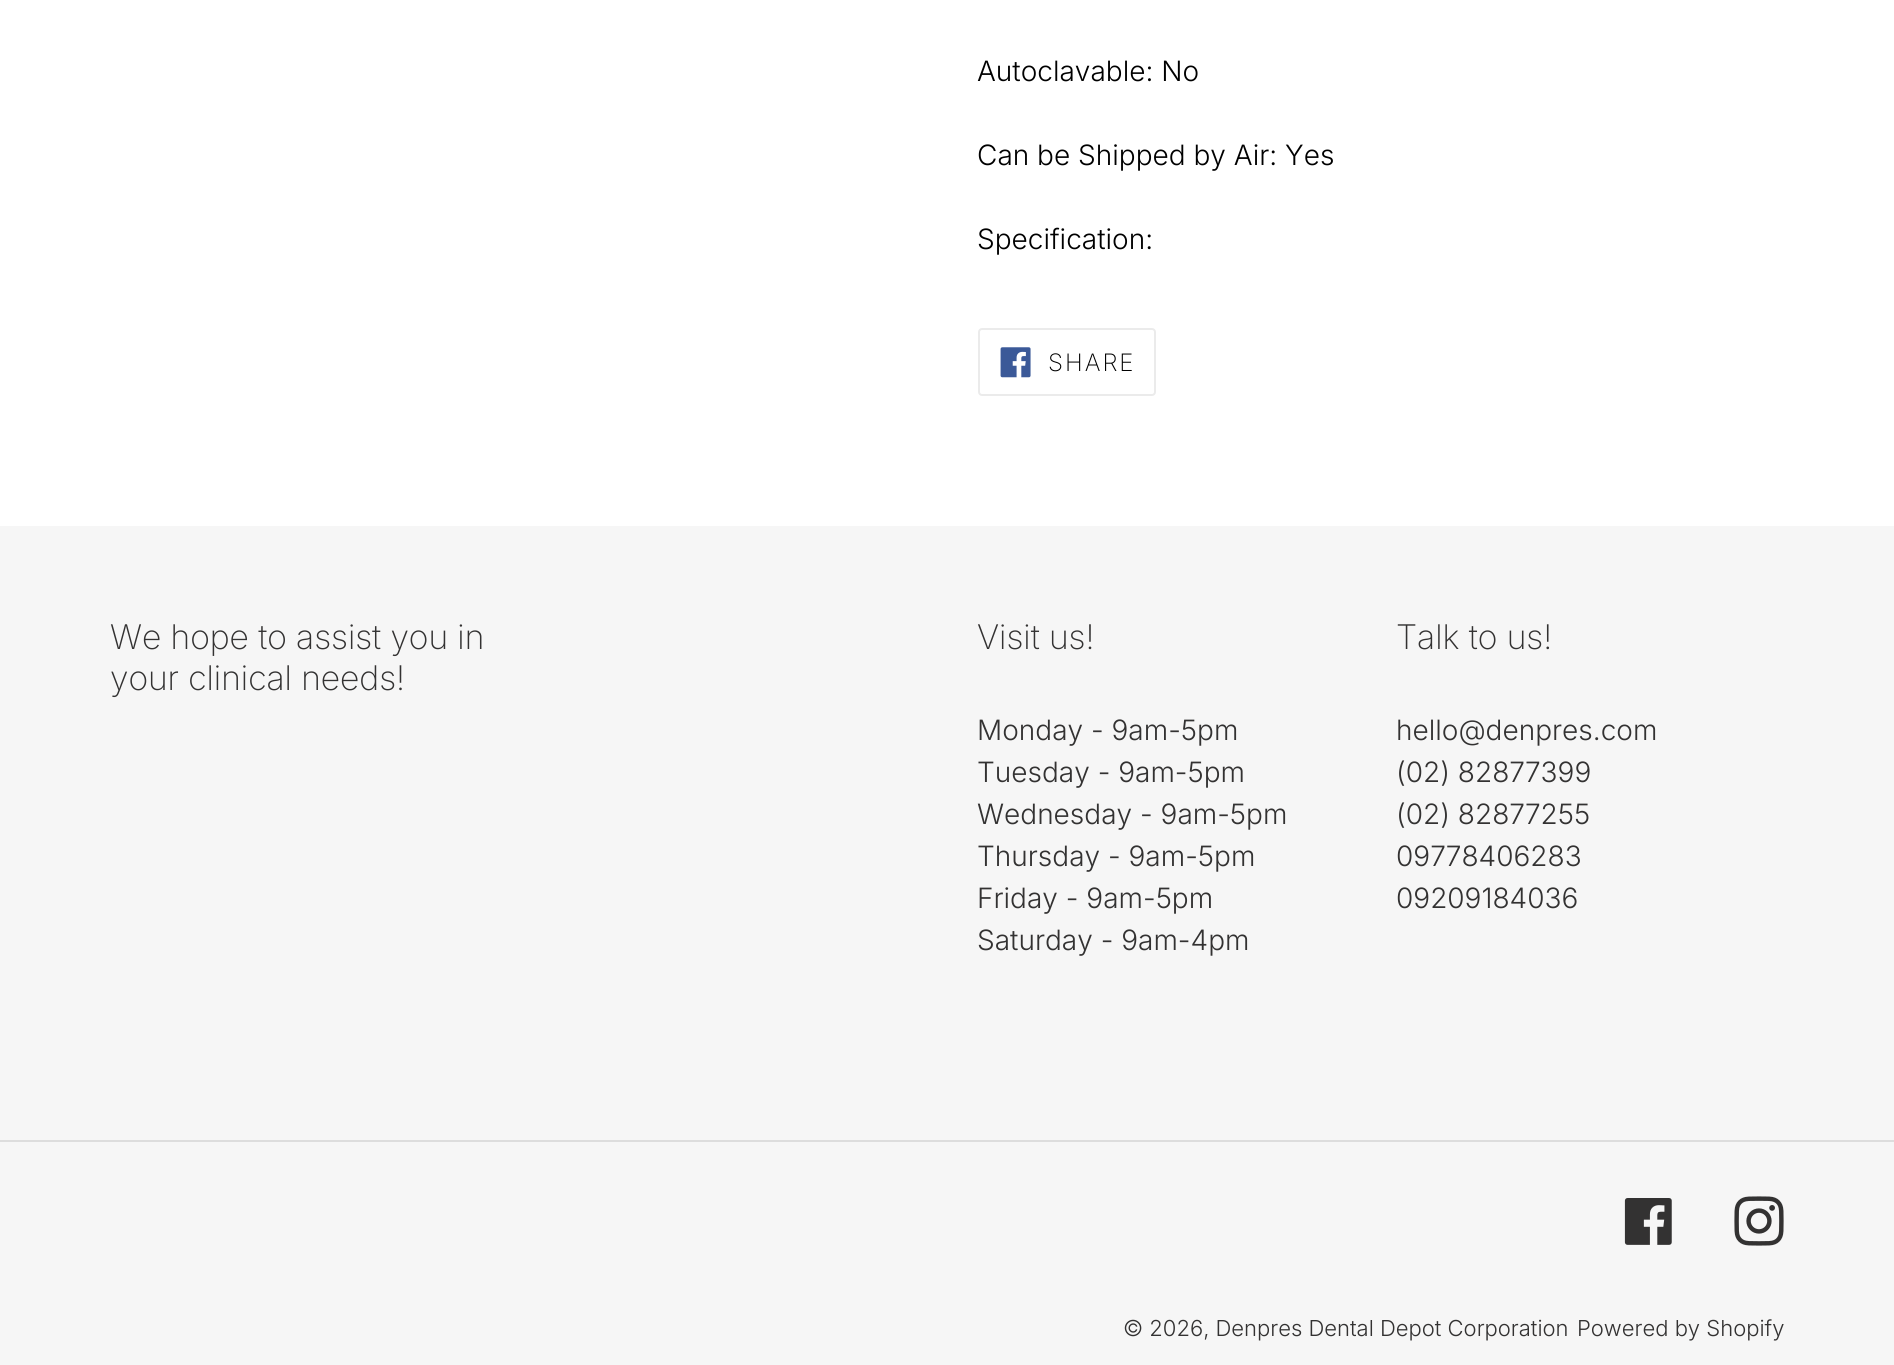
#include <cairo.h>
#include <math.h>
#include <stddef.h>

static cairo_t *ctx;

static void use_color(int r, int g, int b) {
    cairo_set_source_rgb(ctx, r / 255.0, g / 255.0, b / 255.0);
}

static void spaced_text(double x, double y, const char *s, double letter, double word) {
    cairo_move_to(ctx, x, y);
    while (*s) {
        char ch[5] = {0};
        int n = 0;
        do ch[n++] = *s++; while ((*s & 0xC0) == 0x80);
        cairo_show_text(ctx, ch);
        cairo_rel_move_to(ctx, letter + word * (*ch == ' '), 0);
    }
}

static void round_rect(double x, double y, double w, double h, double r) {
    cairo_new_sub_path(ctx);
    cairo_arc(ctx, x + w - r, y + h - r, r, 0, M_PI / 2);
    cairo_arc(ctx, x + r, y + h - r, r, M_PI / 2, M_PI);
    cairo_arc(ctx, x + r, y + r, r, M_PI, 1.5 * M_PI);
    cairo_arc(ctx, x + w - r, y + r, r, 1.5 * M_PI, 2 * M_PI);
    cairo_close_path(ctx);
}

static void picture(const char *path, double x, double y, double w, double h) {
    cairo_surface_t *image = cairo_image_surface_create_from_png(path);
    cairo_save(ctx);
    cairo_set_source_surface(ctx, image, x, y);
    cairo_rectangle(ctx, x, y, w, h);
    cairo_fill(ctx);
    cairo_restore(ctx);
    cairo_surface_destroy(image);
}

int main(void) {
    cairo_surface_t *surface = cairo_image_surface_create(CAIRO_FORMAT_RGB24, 1894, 1365);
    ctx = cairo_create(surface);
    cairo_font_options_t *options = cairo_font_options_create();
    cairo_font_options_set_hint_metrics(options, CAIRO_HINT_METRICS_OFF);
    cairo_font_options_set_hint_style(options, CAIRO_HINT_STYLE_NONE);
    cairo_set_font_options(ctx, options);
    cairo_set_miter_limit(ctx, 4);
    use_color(255, 255, 255);
    cairo_paint(ctx);
    cairo_select_font_face(ctx, "Inter Light", CAIRO_FONT_SLANT_NORMAL, CAIRO_FONT_WEIGHT_NORMAL);
    cairo_set_font_size(ctx, 28);
    use_color(0, 0, 0);
    cairo_move_to(ctx, 977, 81);
    cairo_show_text(ctx, "Autoclavable: No");
    cairo_move_to(ctx, 977, 165);
    cairo_show_text(ctx, "Can be Shipped by Air: Yes");
    cairo_move_to(ctx, 977, 249);
    cairo_show_text(ctx, "Specification:");
    round_rect(979, 329, 176, 66, 3);
    use_color(235, 235, 235);
    cairo_stroke(ctx);
    picture("img1.png", 1000, 347, 31, 31);
    cairo_select_font_face(ctx, "Inter ExtraLight", CAIRO_FONT_SLANT_NORMAL, CAIRO_FONT_WEIGHT_NORMAL);
    cairo_set_font_size(ctx, 24);
    use_color(0, 0, 0);
    spaced_text(1048, 371, "SHARE", 2, 0);
    use_color(246, 246, 246);
    cairo_rectangle(ctx, 0, 526, 1894, 839);
    cairo_fill(ctx);
    cairo_select_font_face(ctx, "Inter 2 ExtraLight", CAIRO_FONT_SLANT_NORMAL, CAIRO_FONT_WEIGHT_NORMAL);
    cairo_set_font_size(ctx, 34);
    use_color(51, 50, 50);
    cairo_move_to(ctx, 110, 649);
    cairo_show_text(ctx, "We hope to assist you in");
    cairo_move_to(ctx, 110, 690);
    cairo_show_text(ctx, "your clinical needs!");
    cairo_move_to(ctx, 977, 649);
    cairo_show_text(ctx, "Visit us!");
    cairo_select_font_face(ctx, "Inter Light", CAIRO_FONT_SLANT_NORMAL, CAIRO_FONT_WEIGHT_NORMAL);
    cairo_set_font_size(ctx, 28);
    cairo_move_to(ctx, 977, 740);
    cairo_show_text(ctx, "Monday - 9am-5pm");
    cairo_move_to(ctx, 977, 782);
    cairo_show_text(ctx, "Tuesday - 9am-5pm");
    cairo_move_to(ctx, 977, 824);
    cairo_show_text(ctx, "Wednesday - 9am-5pm");
    cairo_move_to(ctx, 977, 866);
    cairo_show_text(ctx, "Thursday - 9am-5pm");
    cairo_move_to(ctx, 977, 908);
    cairo_show_text(ctx, "Friday - 9am-5pm");
    cairo_move_to(ctx, 977, 950);
    cairo_show_text(ctx, "Saturday - 9am-4pm");
    cairo_select_font_face(ctx, "Inter 2 ExtraLight", CAIRO_FONT_SLANT_NORMAL, CAIRO_FONT_WEIGHT_NORMAL);
    cairo_set_font_size(ctx, 34);
    cairo_move_to(ctx, 1396, 649);
    cairo_show_text(ctx, "Talk to us!");
    cairo_select_font_face(ctx, "Inter Light", CAIRO_FONT_SLANT_NORMAL, CAIRO_FONT_WEIGHT_NORMAL);
    cairo_set_font_size(ctx, 28);
    cairo_move_to(ctx, 1396, 740);
    cairo_show_text(ctx, "hello@denpres.com");
    cairo_move_to(ctx, 1396, 782);
    cairo_show_text(ctx, "(02) 82877399");
    cairo_move_to(ctx, 1396, 824);
    cairo_show_text(ctx, "(02) 82877255");
    cairo_move_to(ctx, 1396, 866);
    cairo_show_text(ctx, "09778406283");
    cairo_move_to(ctx, 1396, 908);
    cairo_show_text(ctx, "09209184036");
    use_color(221, 221, 221);
    cairo_rectangle(ctx, 0, 1140, 1894, 2);
    cairo_fill(ctx);
    picture("img2.png", 1624, 1198, 48, 47);
    picture("img3.png", 1734, 1196, 50, 50);
    cairo_set_font_size(ctx, 22);
    use_color(51, 50, 50);
    cairo_move_to(ctx, 1123, 1336);
    cairo_show_text(ctx, "© 2026, Denpres Dental Depot Corporation");
    cairo_move_to(ctx, 1577, 1336);
    cairo_show_text(ctx, "Powered by Shopify");
    cairo_surface_write_to_png(surface, "result.png");
    cairo_font_options_destroy(options);
    cairo_destroy(ctx);
    cairo_surface_destroy(surface);
    return 0;
}
